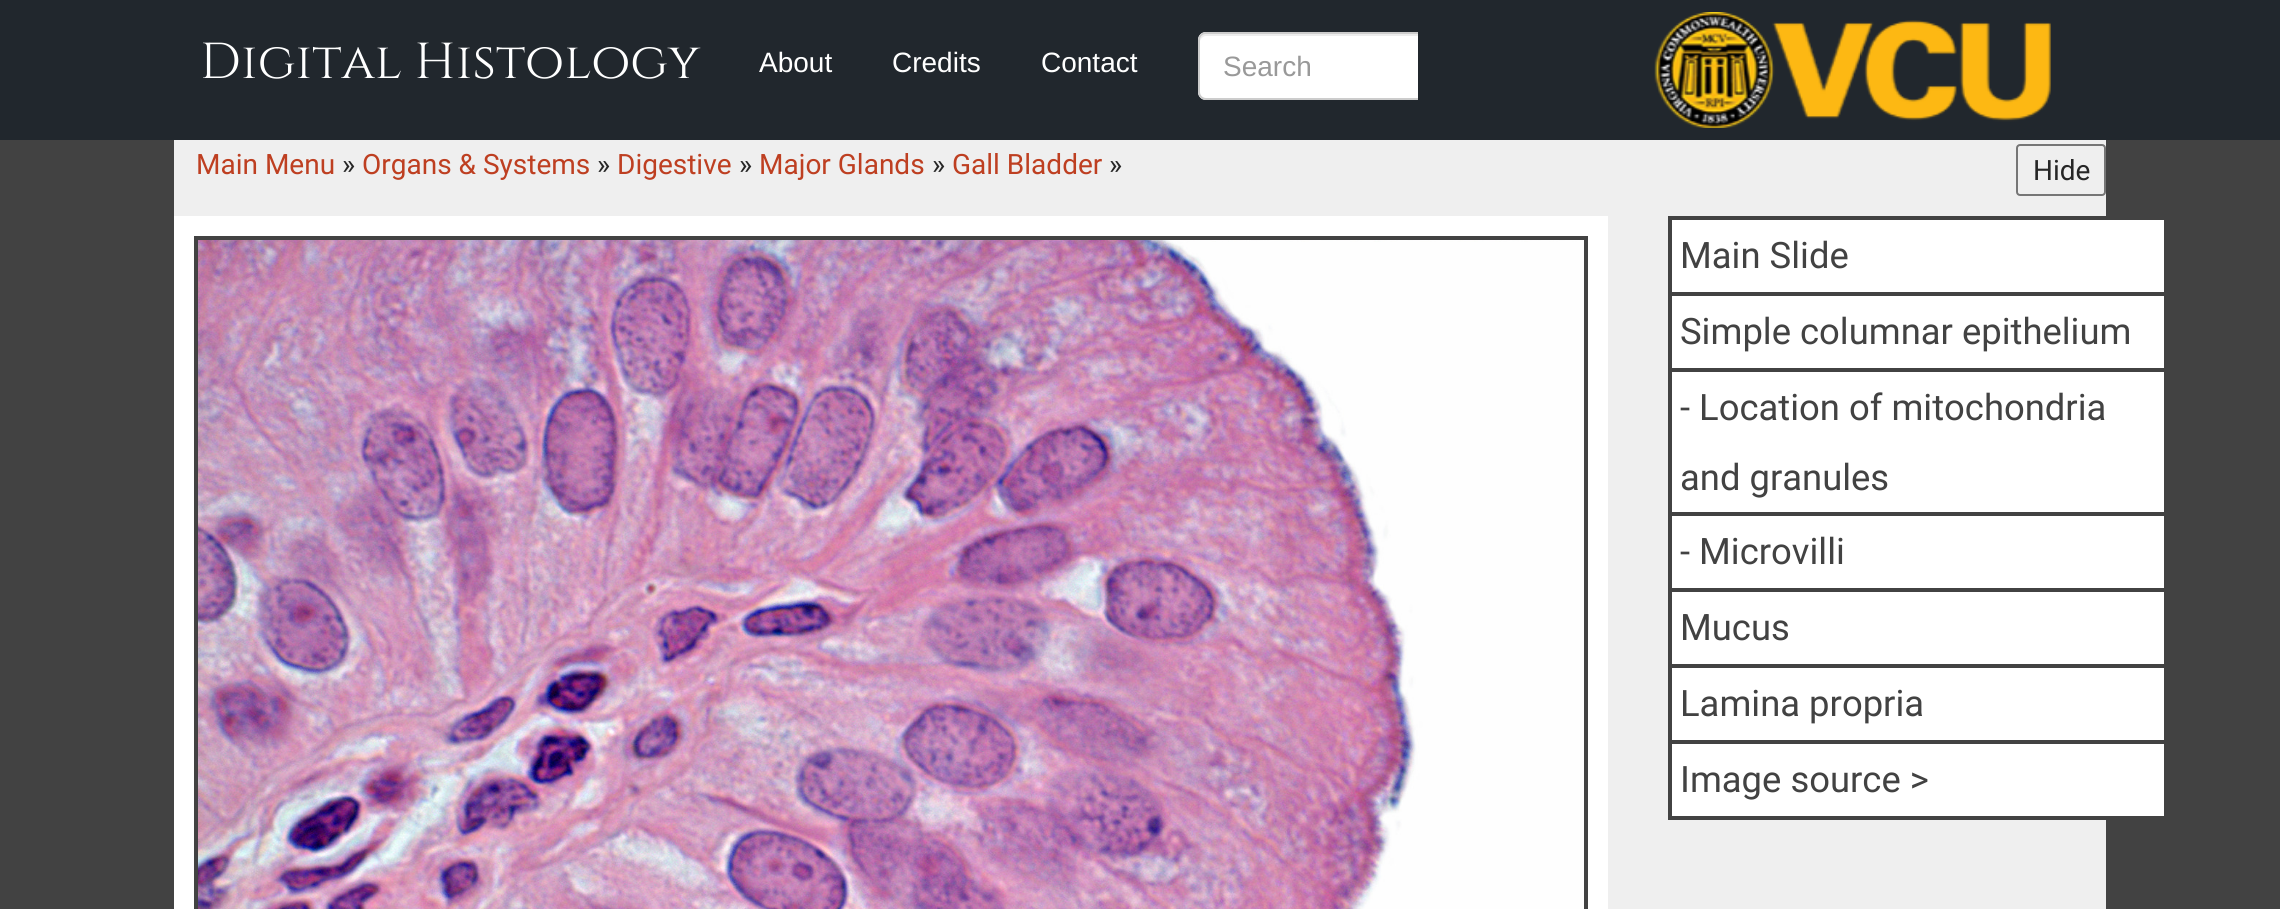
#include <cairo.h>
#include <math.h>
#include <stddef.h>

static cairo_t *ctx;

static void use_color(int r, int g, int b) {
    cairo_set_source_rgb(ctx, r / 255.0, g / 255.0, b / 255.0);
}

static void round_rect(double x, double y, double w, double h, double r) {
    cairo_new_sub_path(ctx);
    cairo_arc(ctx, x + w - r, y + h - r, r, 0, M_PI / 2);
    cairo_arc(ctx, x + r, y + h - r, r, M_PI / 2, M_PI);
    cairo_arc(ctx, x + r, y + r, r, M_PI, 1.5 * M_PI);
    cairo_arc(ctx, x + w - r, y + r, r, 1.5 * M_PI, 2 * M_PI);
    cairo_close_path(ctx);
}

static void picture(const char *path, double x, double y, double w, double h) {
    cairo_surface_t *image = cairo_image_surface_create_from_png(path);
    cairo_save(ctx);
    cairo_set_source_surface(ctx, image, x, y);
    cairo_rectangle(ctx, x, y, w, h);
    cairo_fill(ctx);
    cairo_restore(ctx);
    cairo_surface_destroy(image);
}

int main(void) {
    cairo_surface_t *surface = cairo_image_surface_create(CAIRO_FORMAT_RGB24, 2280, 909);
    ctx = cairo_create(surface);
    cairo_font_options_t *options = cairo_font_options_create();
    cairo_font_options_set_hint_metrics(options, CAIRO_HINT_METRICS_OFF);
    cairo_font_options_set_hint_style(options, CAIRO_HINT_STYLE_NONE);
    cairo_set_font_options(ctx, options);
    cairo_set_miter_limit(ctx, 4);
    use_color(66, 66, 66);
    cairo_paint(ctx);
    use_color(33, 39, 45);
    cairo_rectangle(ctx, 0, 0, 2280, 140);
    cairo_fill(ctx);
    picture("img1.png", 1654, 12, 397, 116);
    cairo_select_font_face(ctx, "Cinzel", CAIRO_FONT_SLANT_NORMAL, CAIRO_FONT_WEIGHT_NORMAL);
    cairo_set_font_size(ctx, 50.5);
    use_color(255, 255, 255);
    cairo_move_to(ctx, 200, 78);
    cairo_show_text(ctx, "Digital Histology");
    cairo_select_font_face(ctx, "Liberation Sans", CAIRO_FONT_SLANT_NORMAL, CAIRO_FONT_WEIGHT_NORMAL);
    cairo_set_font_size(ctx, 28);
    cairo_move_to(ctx, 759, 72);
    cairo_show_text(ctx, "About");
    cairo_move_to(ctx, 892, 72);
    cairo_show_text(ctx, "Credits");
    cairo_move_to(ctx, 1041, 72);
    cairo_show_text(ctx, "Contact");
    cairo_new_path(ctx);
    cairo_move_to(ctx, 1206, 32);
    cairo_line_to(ctx, 1418, 32);
    cairo_line_to(ctx, 1418, 100);
    cairo_line_to(ctx, 1206, 100);
    cairo_curve_to(ctx, 1201.5, 100, 1198, 96.5, 1198, 92);
    cairo_line_to(ctx, 1198, 40);
    cairo_curve_to(ctx, 1198, 35.5, 1201.5, 32, 1206, 32);
    cairo_close_path(ctx);
    cairo_fill(ctx);
    cairo_save(ctx);
    cairo_rectangle(ctx, 1168, 32, 250, 80);
    cairo_clip(ctx);
    use_color(236, 236, 236);
    cairo_new_path(ctx);
    cairo_move_to(ctx, 1206, 36);
    cairo_line_to(ctx, 1604, 36);
    cairo_curve_to(ctx, 1607, 36, 1610, 39, 1610, 42);
    cairo_curve_to(ctx, 1610, 38, 1609, 34, 1604, 34);
    cairo_line_to(ctx, 1206, 34);
    cairo_curve_to(ctx, 1201, 34, 1200, 38, 1200, 42);
    cairo_curve_to(ctx, 1200, 39, 1203, 36, 1206, 36);
    cairo_close_path(ctx);
    cairo_fill(ctx);
    round_rect(1199, 33, 412, 66, 7);
    use_color(204, 204, 204);
    cairo_stroke(ctx);
    cairo_restore(ctx);
    use_color(153, 153, 153);
    cairo_move_to(ctx, 1223, 76);
    cairo_show_text(ctx, "Search");
    use_color(239, 239, 239);
    cairo_rectangle(ctx, 174, 140, 1932, 769);
    cairo_fill(ctx);
    cairo_select_font_face(ctx, "Roboto", CAIRO_FONT_SLANT_NORMAL, CAIRO_FONT_WEIGHT_NORMAL);
    use_color(190, 63, 33);
    cairo_move_to(ctx, 196, 174);
    cairo_show_text(ctx, "Main Menu");
    use_color(38, 38, 38);
    cairo_move_to(ctx, 342, 174);
    cairo_show_text(ctx, "»");
    use_color(190, 63, 33);
    cairo_move_to(ctx, 362, 174);
    cairo_show_text(ctx, "Organs & Systems");
    use_color(38, 38, 38);
    cairo_move_to(ctx, 597, 174);
    cairo_show_text(ctx, "»");
    use_color(190, 63, 33);
    cairo_move_to(ctx, 617, 174);
    cairo_show_text(ctx, "Digestive");
    use_color(38, 38, 38);
    cairo_move_to(ctx, 739, 174);
    cairo_show_text(ctx, "»");
    use_color(190, 63, 33);
    cairo_move_to(ctx, 759, 174);
    cairo_show_text(ctx, "Major Glands");
    use_color(38, 38, 38);
    cairo_move_to(ctx, 932, 174);
    cairo_show_text(ctx, "»");
    use_color(190, 63, 33);
    cairo_move_to(ctx, 952, 174);
    cairo_show_text(ctx, "Gall Bladder");
    use_color(38, 38, 38);
    cairo_move_to(ctx, 1109, 174);
    cairo_show_text(ctx, "»");
    use_color(255, 255, 255);
    cairo_rectangle(ctx, 174, 216, 1434, 693);
    cairo_fill(ctx);
    picture("img2.png", 198, 240, 1386, 669);
    cairo_rectangle(ctx, 196, 238, 1390, 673);
    use_color(66, 66, 66);
    cairo_set_line_width(ctx, 4);
    cairo_stroke(ctx);
    use_color(255, 255, 255);
    cairo_rectangle(ctx, 1670, 218, 496, 76);
    cairo_fill_preserve(ctx);
    use_color(66, 66, 66);
    cairo_stroke(ctx);
    cairo_set_font_size(ctx, 36.4);
    cairo_move_to(ctx, 1680, 268);
    cairo_show_text(ctx, "Main Slide");
    use_color(255, 255, 255);
    cairo_rectangle(ctx, 1670, 294, 496, 76);
    cairo_fill_preserve(ctx);
    use_color(66, 66, 66);
    cairo_stroke(ctx);
    cairo_move_to(ctx, 1680, 344);
    cairo_show_text(ctx, "Simple columnar epithelium");
    use_color(255, 255, 255);
    cairo_rectangle(ctx, 1670, 370, 496, 144);
    cairo_fill_preserve(ctx);
    use_color(66, 66, 66);
    cairo_stroke(ctx);
    cairo_move_to(ctx, 1680, 420);
    cairo_show_text(ctx, "- Location of mitochondria");
    cairo_move_to(ctx, 1680, 490);
    cairo_show_text(ctx, "and granules");
    use_color(255, 255, 255);
    cairo_rectangle(ctx, 1670, 514, 496, 76);
    cairo_fill_preserve(ctx);
    use_color(66, 66, 66);
    cairo_stroke(ctx);
    cairo_move_to(ctx, 1680, 564);
    cairo_show_text(ctx, "- Microvilli");
    use_color(255, 255, 255);
    cairo_rectangle(ctx, 1670, 590, 496, 76);
    cairo_fill_preserve(ctx);
    use_color(66, 66, 66);
    cairo_stroke(ctx);
    cairo_move_to(ctx, 1680, 640);
    cairo_show_text(ctx, "Mucus");
    use_color(255, 255, 255);
    cairo_rectangle(ctx, 1670, 666, 496, 76);
    cairo_fill_preserve(ctx);
    use_color(66, 66, 66);
    cairo_stroke(ctx);
    cairo_move_to(ctx, 1680, 716);
    cairo_show_text(ctx, "Lamina propria");
    use_color(255, 255, 255);
    cairo_rectangle(ctx, 1670, 742, 496, 76);
    cairo_fill_preserve(ctx);
    use_color(66, 66, 66);
    cairo_stroke(ctx);
    cairo_move_to(ctx, 1680, 792);
    cairo_show_text(ctx, "Image source >");
    round_rect(2017, 145, 88, 50, 3);
    use_color(118, 118, 118);
    cairo_set_line_width(ctx, 2);
    cairo_stroke(ctx);
    cairo_set_font_size(ctx, 28);
    use_color(38, 38, 38);
    cairo_move_to(ctx, 2033, 180);
    cairo_show_text(ctx, "Hide");
    cairo_surface_write_to_png(surface, "result.png");
    cairo_font_options_destroy(options);
    cairo_destroy(ctx);
    cairo_surface_destroy(surface);
    return 0;
}
